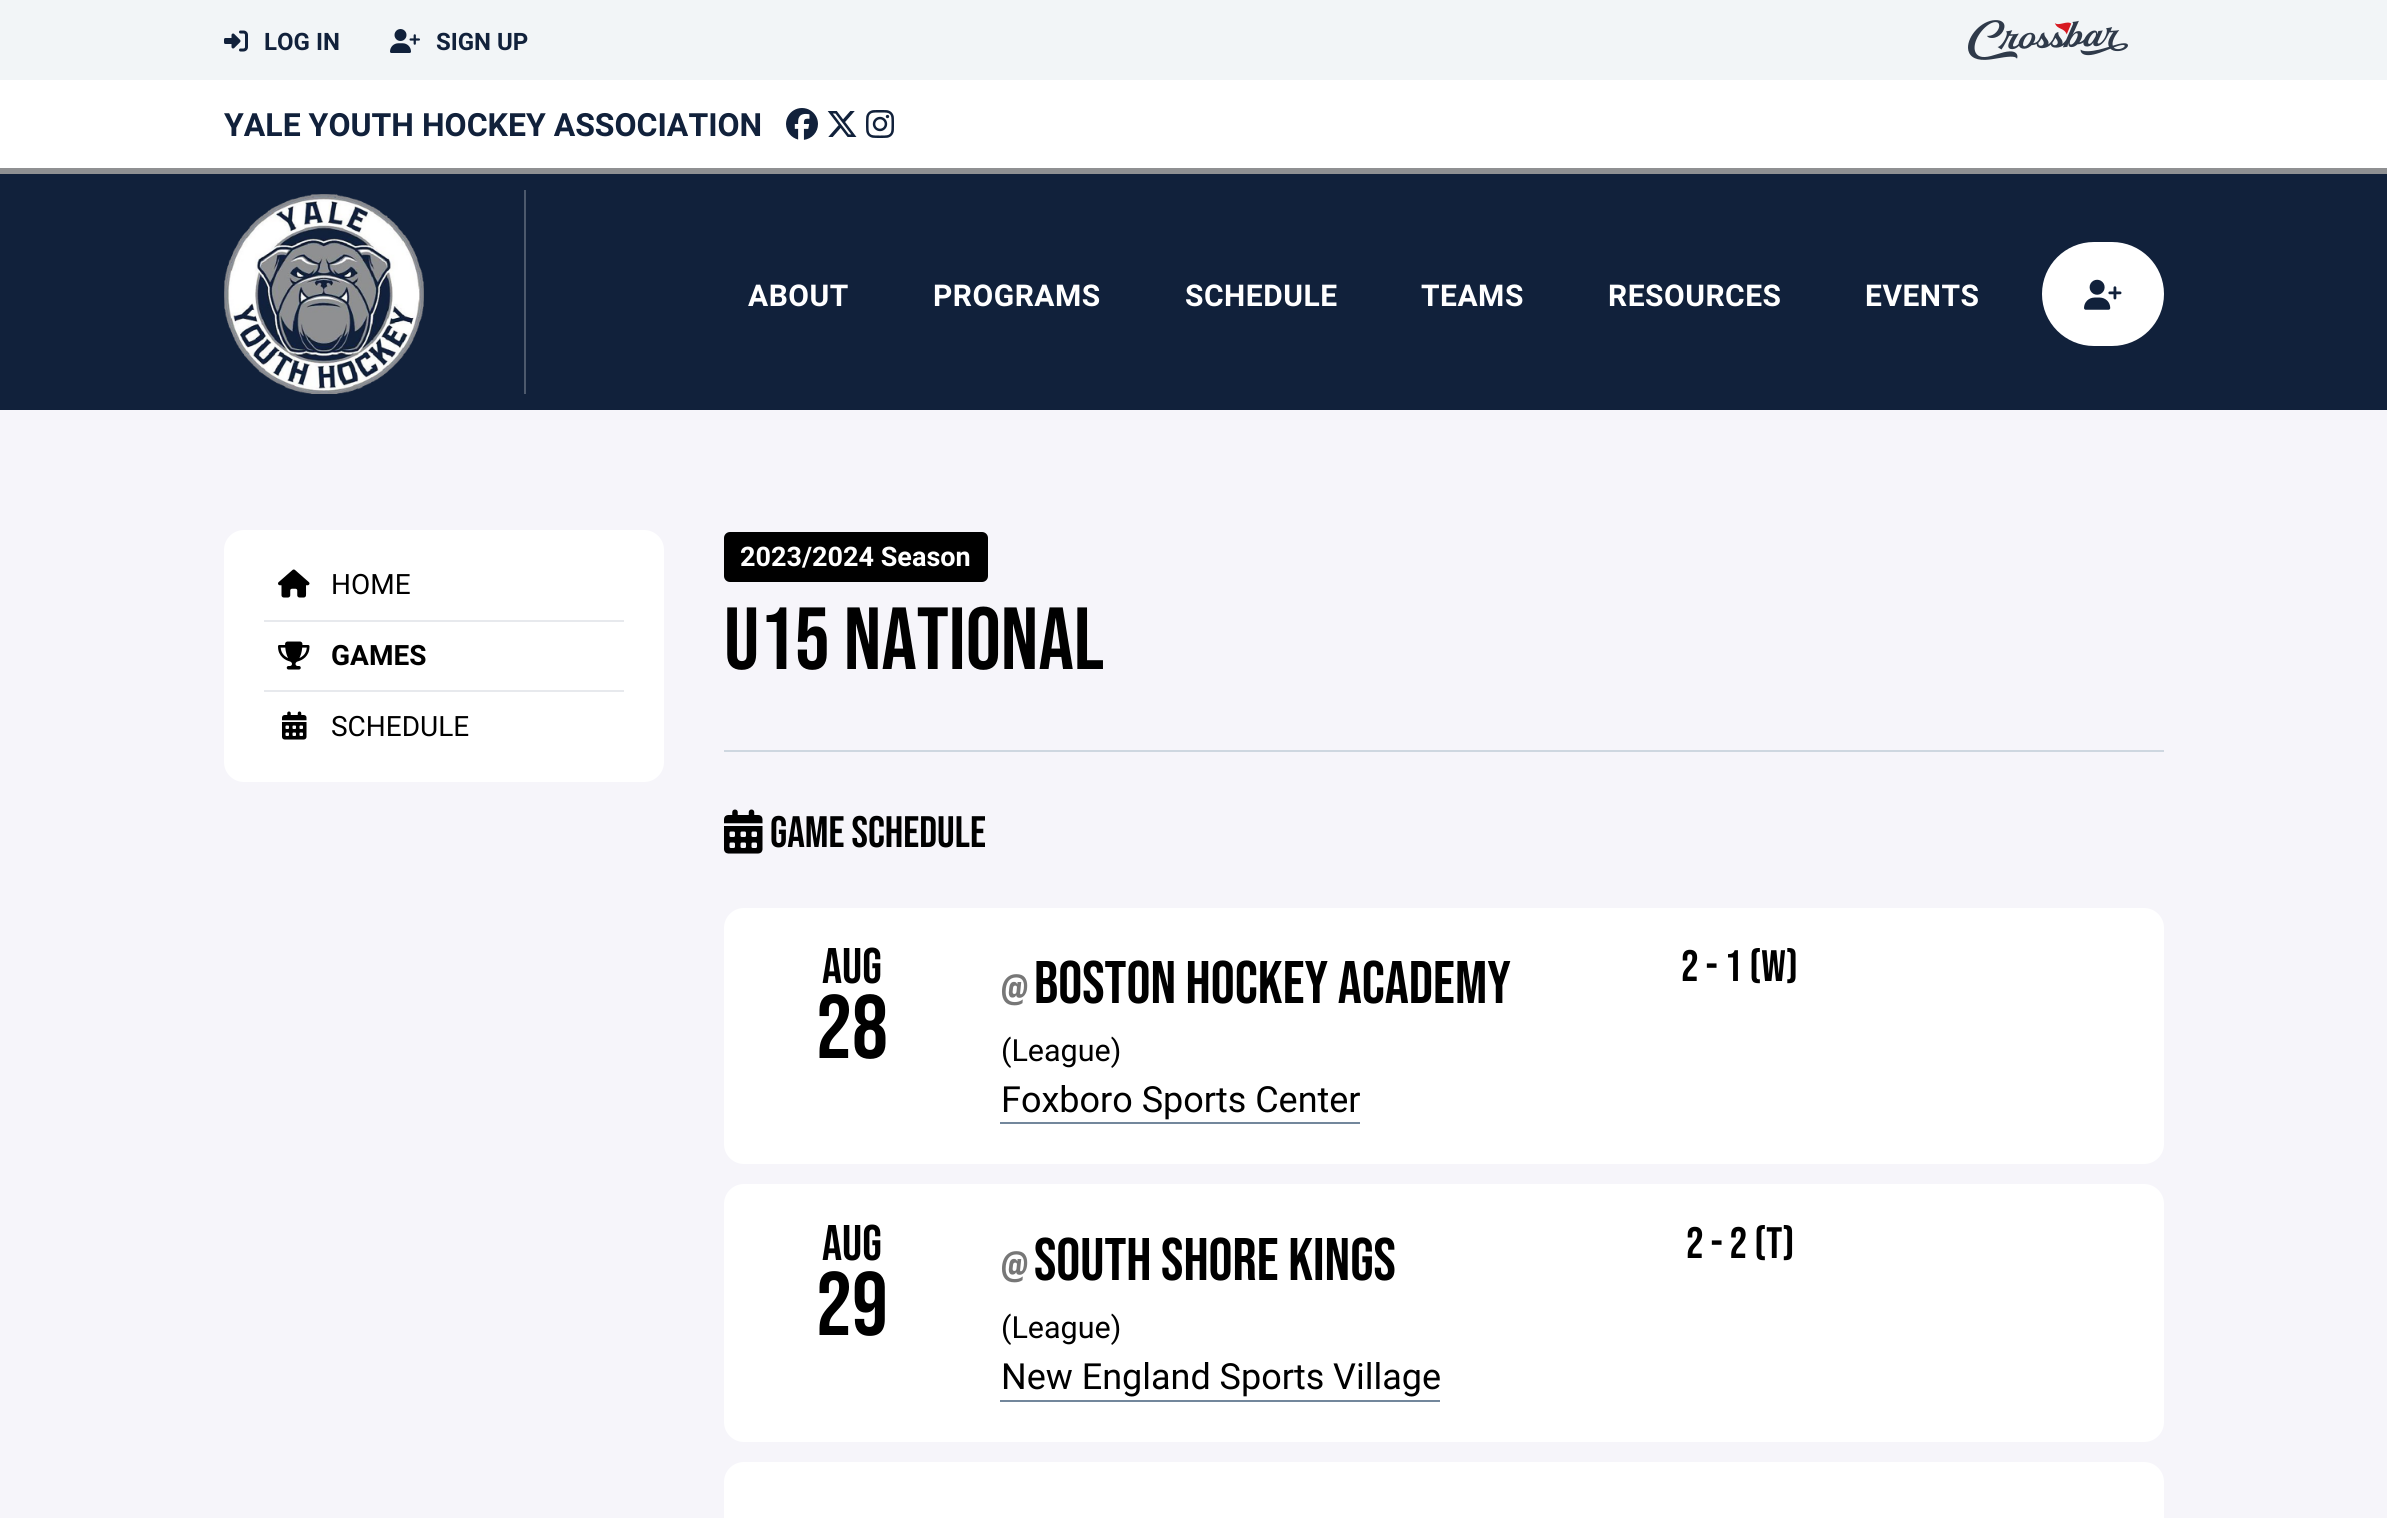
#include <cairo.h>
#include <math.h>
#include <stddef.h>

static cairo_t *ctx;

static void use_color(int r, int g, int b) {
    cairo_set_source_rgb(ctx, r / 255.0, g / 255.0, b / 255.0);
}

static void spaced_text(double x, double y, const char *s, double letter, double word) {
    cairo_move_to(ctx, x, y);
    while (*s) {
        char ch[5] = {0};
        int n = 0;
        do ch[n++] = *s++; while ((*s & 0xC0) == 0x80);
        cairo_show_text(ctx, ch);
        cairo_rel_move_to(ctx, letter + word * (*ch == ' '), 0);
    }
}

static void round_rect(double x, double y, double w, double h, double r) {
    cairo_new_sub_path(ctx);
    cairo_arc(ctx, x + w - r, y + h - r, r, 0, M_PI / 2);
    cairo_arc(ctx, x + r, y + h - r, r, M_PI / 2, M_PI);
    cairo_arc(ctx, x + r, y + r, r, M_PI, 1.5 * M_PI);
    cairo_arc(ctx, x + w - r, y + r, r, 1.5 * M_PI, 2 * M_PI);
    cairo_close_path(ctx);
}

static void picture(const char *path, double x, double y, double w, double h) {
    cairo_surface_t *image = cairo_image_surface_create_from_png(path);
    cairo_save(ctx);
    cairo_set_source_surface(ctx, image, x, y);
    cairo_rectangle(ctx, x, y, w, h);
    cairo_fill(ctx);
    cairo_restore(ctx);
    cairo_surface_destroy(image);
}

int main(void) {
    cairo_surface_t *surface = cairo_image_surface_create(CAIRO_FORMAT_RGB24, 2387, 1518);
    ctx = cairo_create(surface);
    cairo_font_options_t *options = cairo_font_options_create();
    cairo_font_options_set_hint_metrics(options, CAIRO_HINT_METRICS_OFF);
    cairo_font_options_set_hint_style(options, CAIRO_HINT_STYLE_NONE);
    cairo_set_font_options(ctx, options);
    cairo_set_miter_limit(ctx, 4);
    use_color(242, 245, 247);
    cairo_paint(ctx);
    picture("img1.png", 224, 30, 24, 22);
    cairo_select_font_face(ctx, "Roboto", CAIRO_FONT_SLANT_NORMAL, CAIRO_FONT_WEIGHT_BOLD);
    cairo_set_font_size(ctx, 24);
    use_color(17, 33, 59);
    cairo_move_to(ctx, 264, 50);
    cairo_show_text(ctx, "LOG IN");
    picture("img2.png", 390, 29, 30, 24);
    cairo_move_to(ctx, 436, 50);
    cairo_show_text(ctx, "SIGN UP");
    picture("img3.png", 1968, 20, 160, 40);
    use_color(255, 255, 255);
    cairo_rectangle(ctx, 0, 80, 2387, 88);
    cairo_fill(ctx);
    cairo_set_font_size(ctx, 32);
    use_color(17, 33, 59);
    cairo_move_to(ctx, 224, 136);
    cairo_show_text(ctx, "YALE YOUTH HOCKEY ASSOCIATION");
    picture("img4.png", 786, 108, 32, 32);
    picture("img5.png", 827, 111, 30, 26);
    picture("img6.png", 866, 110, 28, 28);
    cairo_rectangle(ctx, 0, 174, 2387, 236);
    cairo_fill(ctx);
    use_color(143, 144, 146);
    cairo_rectangle(ctx, 0, 168, 2387, 6);
    cairo_fill(ctx);
    use_color(77, 89, 108);
    cairo_rectangle(ctx, 524, 190, 2, 204);
    cairo_fill(ctx);
    picture("img7.png", 224, 194, 200, 200);
    cairo_set_font_size(ctx, 30);
    use_color(255, 255, 255);
    spaced_text(748, 306, "ABOUT", 0.5, 0);
    spaced_text(933, 306, "PROGRAMS", 0.5, 0);
    spaced_text(1185, 306, "SCHEDULE", 0.5, 0);
    spaced_text(1421, 306, "TEAMS", 0.5, 0);
    spaced_text(1608, 306, "RESOURCES", 0.5, 0);
    spaced_text(1865, 306, "EVENTS", 0.5, 0);
    round_rect(2042, 242, 122, 104, 52);
    cairo_fill(ctx);
    picture("img8.png", 2084, 279, 38, 31);
    use_color(246, 245, 250);
    cairo_rectangle(ctx, 0, 410, 2387, 1108);
    cairo_fill(ctx);
    use_color(255, 255, 255);
    round_rect(224, 530, 440, 252, 20);
    cairo_fill(ctx);
    picture("img9.png", 278, 569, 32, 29);
    cairo_select_font_face(ctx, "Roboto", CAIRO_FONT_SLANT_NORMAL, CAIRO_FONT_WEIGHT_NORMAL);
    cairo_set_font_size(ctx, 28);
    use_color(0, 0, 0);
    cairo_move_to(ctx, 331, 594);
    cairo_show_text(ctx, "HOME");
    use_color(231, 233, 237);
    cairo_rectangle(ctx, 264, 620, 360, 2);
    cairo_fill(ctx);
    picture("img10.png", 278, 641, 32, 29);
    cairo_select_font_face(ctx, "Roboto", CAIRO_FONT_SLANT_NORMAL, CAIRO_FONT_WEIGHT_BOLD);
    use_color(0, 0, 0);
    cairo_move_to(ctx, 331, 665);
    cairo_show_text(ctx, "GAMES");
    use_color(231, 233, 237);
    cairo_rectangle(ctx, 264, 690, 360, 2);
    cairo_fill(ctx);
    picture("img11.png", 282, 711, 25, 29);
    cairo_select_font_face(ctx, "Roboto", CAIRO_FONT_SLANT_NORMAL, CAIRO_FONT_WEIGHT_NORMAL);
    use_color(0, 0, 0);
    cairo_move_to(ctx, 331, 736);
    cairo_show_text(ctx, "SCHEDULE");
    round_rect(724, 532, 264, 50, 6);
    cairo_fill(ctx);
    cairo_select_font_face(ctx, "Roboto", CAIRO_FONT_SLANT_NORMAL, CAIRO_FONT_WEIGHT_BOLD);
    cairo_set_font_size(ctx, 27);
    use_color(255, 255, 255);
    cairo_move_to(ctx, 740, 566);
    cairo_show_text(ctx, "2023/2024 Season");
    cairo_select_font_face(ctx, "Bebas Neue", CAIRO_FONT_SLANT_NORMAL, CAIRO_FONT_WEIGHT_NORMAL);
    cairo_set_font_size(ctx, 88);
    use_color(0, 0, 0);
    cairo_move_to(ctx, 724, 669);
    cairo_show_text(ctx, "U15 NATIONAL");
    use_color(206, 215, 224);
    cairo_rectangle(ctx, 724, 750, 1440, 2);
    cairo_fill(ctx);
    picture("img12.png", 724, 809, 39, 45);
    cairo_set_font_size(ctx, 44);
    use_color(0, 0, 0);
    cairo_move_to(ctx, 770, 847);
    cairo_show_text(ctx, "GAME SCHEDULE");
    use_color(255, 255, 255);
    round_rect(724, 908, 1440, 256, 20);
    cairo_fill(ctx);
    cairo_set_font_size(ctx, 50);
    use_color(0, 0, 0);
    cairo_move_to(ctx, 822, 983);
    cairo_show_text(ctx, "AUG");
    cairo_set_font_size(ctx, 90);
    cairo_move_to(ctx, 816, 1058);
    cairo_show_text(ctx, "28");
    cairo_set_font_size(ctx, 39);
    use_color(119, 119, 119);
    cairo_move_to(ctx, 1001, 1003);
    cairo_show_text(ctx, "@");
    cairo_set_font_size(ctx, 60);
    use_color(0, 0, 0);
    cairo_move_to(ctx, 1034, 1003);
    cairo_show_text(ctx, "BOSTON HOCKEY ACADEMY");
    cairo_select_font_face(ctx, "Roboto", CAIRO_FONT_SLANT_NORMAL, CAIRO_FONT_WEIGHT_NORMAL);
    cairo_set_font_size(ctx, 30.5);
    cairo_move_to(ctx, 1001, 1061);
    cairo_show_text(ctx, "(League)");
    cairo_set_font_size(ctx, 36);
    cairo_move_to(ctx, 1001, 1112);
    cairo_show_text(ctx, "Foxboro Sports Center");
    use_color(115, 135, 156);
    cairo_rectangle(ctx, 1000, 1122, 360, 2);
    cairo_fill(ctx);
    cairo_select_font_face(ctx, "Bebas Neue", CAIRO_FONT_SLANT_NORMAL, CAIRO_FONT_WEIGHT_NORMAL);
    cairo_set_font_size(ctx, 44);
    use_color(0, 0, 0);
    cairo_move_to(ctx, 1681, 981);
    cairo_show_text(ctx, "2 - 1 (W)");
    use_color(255, 255, 255);
    round_rect(724, 1184, 1440, 258, 20);
    cairo_fill(ctx);
    cairo_set_font_size(ctx, 50);
    use_color(0, 0, 0);
    cairo_move_to(ctx, 822, 1260);
    cairo_show_text(ctx, "AUG");
    cairo_set_font_size(ctx, 90);
    cairo_move_to(ctx, 816, 1335);
    cairo_show_text(ctx, "29");
    cairo_set_font_size(ctx, 39);
    use_color(119, 119, 119);
    cairo_move_to(ctx, 1001, 1280);
    cairo_show_text(ctx, "@");
    cairo_set_font_size(ctx, 60);
    use_color(0, 0, 0);
    cairo_move_to(ctx, 1034, 1280);
    cairo_show_text(ctx, "SOUTH SHORE KINGS");
    cairo_select_font_face(ctx, "Roboto", CAIRO_FONT_SLANT_NORMAL, CAIRO_FONT_WEIGHT_NORMAL);
    cairo_set_font_size(ctx, 30.5);
    cairo_move_to(ctx, 1001, 1338);
    cairo_show_text(ctx, "(League)");
    cairo_set_font_size(ctx, 36);
    cairo_move_to(ctx, 1001, 1389);
    cairo_show_text(ctx, "New England Sports Village");
    use_color(115, 135, 156);
    cairo_rectangle(ctx, 1000, 1400, 440, 2);
    cairo_fill(ctx);
    cairo_select_font_face(ctx, "Bebas Neue", CAIRO_FONT_SLANT_NORMAL, CAIRO_FONT_WEIGHT_NORMAL);
    cairo_set_font_size(ctx, 44);
    use_color(0, 0, 0);
    cairo_move_to(ctx, 1686, 1258);
    cairo_show_text(ctx, "2 - 2 (T)");
    use_color(255, 255, 255);
    round_rect(724, 1462, 1440, 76, 20);
    cairo_fill(ctx);
    cairo_surface_write_to_png(surface, "result.png");
    cairo_font_options_destroy(options);
    cairo_destroy(ctx);
    cairo_surface_destroy(surface);
    return 0;
}
